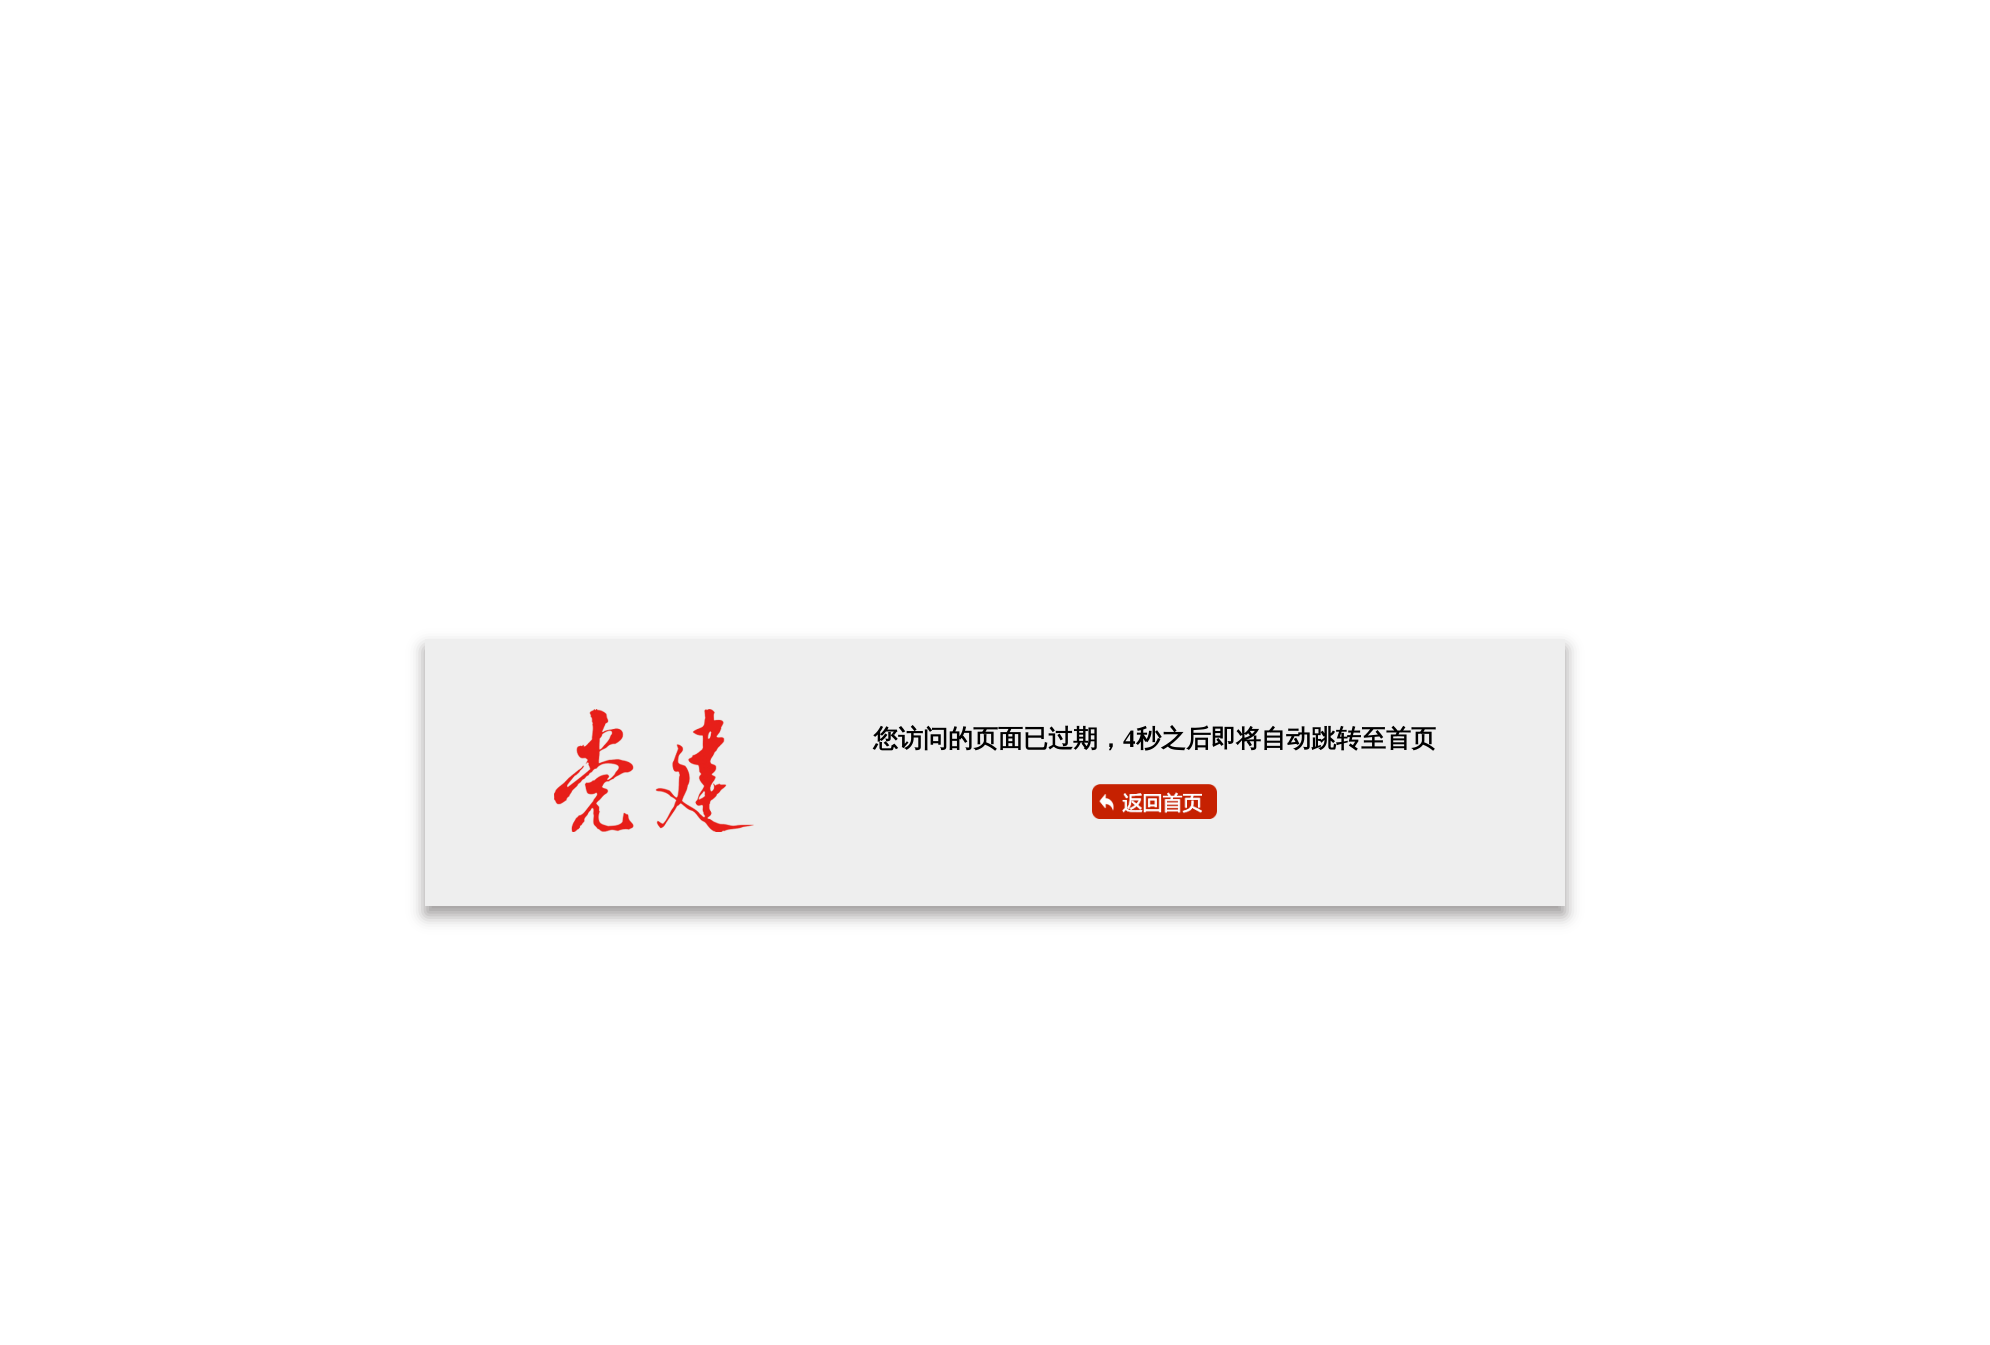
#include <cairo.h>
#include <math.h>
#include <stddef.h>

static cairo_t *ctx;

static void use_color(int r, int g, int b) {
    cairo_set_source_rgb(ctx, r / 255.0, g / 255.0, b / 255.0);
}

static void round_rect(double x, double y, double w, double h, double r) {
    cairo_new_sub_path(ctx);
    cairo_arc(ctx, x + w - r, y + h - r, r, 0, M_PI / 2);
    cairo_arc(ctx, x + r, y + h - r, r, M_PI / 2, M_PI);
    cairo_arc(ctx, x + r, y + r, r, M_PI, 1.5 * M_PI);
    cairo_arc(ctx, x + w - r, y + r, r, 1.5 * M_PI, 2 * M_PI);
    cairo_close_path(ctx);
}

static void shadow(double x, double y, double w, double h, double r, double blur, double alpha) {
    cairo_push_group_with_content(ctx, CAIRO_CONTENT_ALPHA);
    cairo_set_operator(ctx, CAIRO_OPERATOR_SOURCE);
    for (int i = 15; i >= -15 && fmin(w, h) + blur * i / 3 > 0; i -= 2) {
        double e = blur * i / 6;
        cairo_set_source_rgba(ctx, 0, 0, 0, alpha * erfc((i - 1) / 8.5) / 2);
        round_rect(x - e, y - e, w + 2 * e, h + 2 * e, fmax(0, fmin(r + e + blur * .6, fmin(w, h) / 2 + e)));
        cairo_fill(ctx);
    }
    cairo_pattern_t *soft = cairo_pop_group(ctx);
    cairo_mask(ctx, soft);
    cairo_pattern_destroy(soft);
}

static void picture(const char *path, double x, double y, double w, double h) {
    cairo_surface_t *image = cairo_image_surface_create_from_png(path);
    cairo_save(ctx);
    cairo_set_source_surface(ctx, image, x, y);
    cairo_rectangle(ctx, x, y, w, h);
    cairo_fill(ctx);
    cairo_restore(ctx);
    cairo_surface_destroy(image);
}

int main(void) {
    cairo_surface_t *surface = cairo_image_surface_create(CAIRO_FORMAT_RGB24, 1990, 1345);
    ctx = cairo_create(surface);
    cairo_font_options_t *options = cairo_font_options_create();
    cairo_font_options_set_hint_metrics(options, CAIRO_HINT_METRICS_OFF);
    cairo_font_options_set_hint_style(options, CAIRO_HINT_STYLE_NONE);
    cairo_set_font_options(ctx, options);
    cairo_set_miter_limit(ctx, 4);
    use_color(255, 255, 255);
    cairo_paint(ctx);
    use_color(155, 152, 152);
    shadow(425, 648, 1140, 267, 0, 8, 1);
    use_color(238, 238, 238);
    cairo_rectangle(ctx, 425, 639, 1140, 267);
    cairo_fill(ctx);
    picture("img1.png", 554, 709, 200, 123);
    cairo_select_font_face(ctx, "WenQuanYi Zen Hei", CAIRO_FONT_SLANT_NORMAL, CAIRO_FONT_WEIGHT_BOLD);
    cairo_set_font_size(ctx, 25);
    use_color(0, 0, 0);
    cairo_move_to(ctx, 873, 747);
    cairo_show_text(ctx, "您访问的页面已过期，");
    cairo_select_font_face(ctx, "Liberation Serif", CAIRO_FONT_SLANT_NORMAL, CAIRO_FONT_WEIGHT_BOLD);
    cairo_move_to(ctx, 1123, 747);
    cairo_show_text(ctx, "4");
    cairo_select_font_face(ctx, "WenQuanYi Zen Hei", CAIRO_FONT_SLANT_NORMAL, CAIRO_FONT_WEIGHT_BOLD);
    cairo_move_to(ctx, 1136, 747);
    cairo_show_text(ctx, "秒之后即将自动跳转至首页");
    picture("img2.png", 1092, 784, 125, 35);
    cairo_surface_write_to_png(surface, "result.png");
    cairo_font_options_destroy(options);
    cairo_destroy(ctx);
    cairo_surface_destroy(surface);
    return 0;
}
